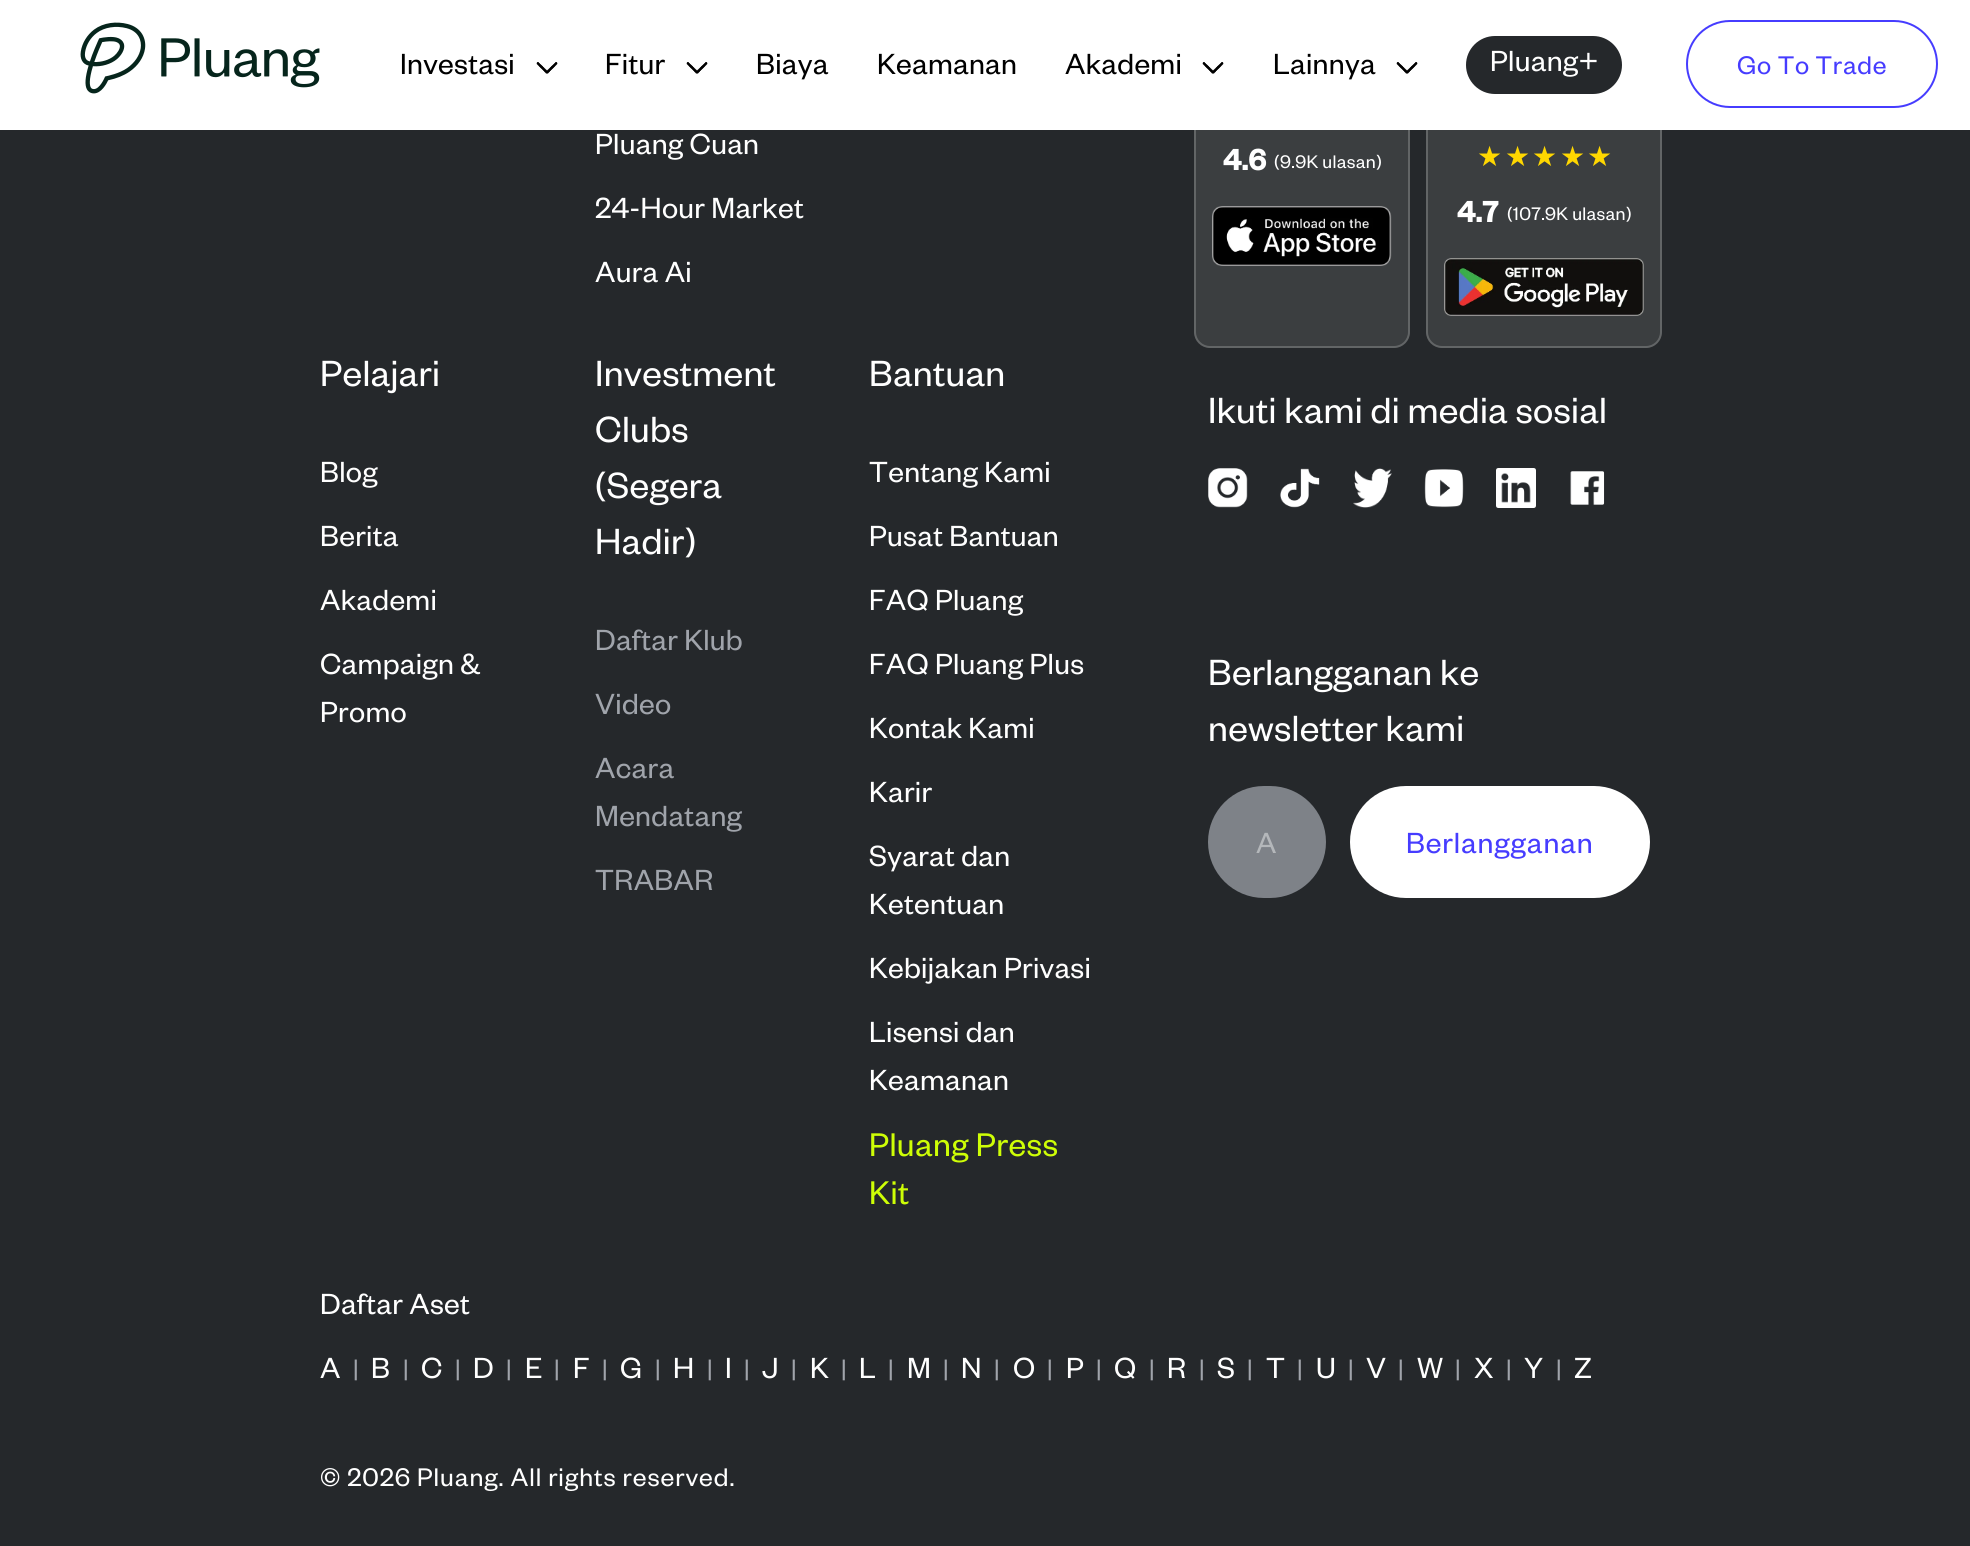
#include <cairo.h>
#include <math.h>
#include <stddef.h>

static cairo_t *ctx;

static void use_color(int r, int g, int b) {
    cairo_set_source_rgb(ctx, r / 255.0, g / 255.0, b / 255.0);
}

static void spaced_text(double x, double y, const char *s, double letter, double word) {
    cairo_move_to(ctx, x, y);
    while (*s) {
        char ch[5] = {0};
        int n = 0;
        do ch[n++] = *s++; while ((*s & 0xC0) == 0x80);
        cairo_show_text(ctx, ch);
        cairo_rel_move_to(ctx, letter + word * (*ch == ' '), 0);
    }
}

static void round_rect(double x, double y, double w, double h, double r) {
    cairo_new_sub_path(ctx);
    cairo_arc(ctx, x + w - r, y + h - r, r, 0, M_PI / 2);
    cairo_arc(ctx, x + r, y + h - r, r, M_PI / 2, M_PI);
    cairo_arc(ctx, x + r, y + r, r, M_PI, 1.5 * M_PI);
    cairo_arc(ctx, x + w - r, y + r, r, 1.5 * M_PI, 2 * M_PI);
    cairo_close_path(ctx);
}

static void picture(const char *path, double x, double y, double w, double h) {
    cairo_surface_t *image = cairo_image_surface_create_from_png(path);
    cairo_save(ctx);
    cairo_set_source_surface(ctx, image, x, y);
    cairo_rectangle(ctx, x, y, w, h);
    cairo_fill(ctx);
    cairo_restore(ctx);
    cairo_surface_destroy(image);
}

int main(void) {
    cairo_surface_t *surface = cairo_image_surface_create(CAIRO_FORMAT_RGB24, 1970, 1546);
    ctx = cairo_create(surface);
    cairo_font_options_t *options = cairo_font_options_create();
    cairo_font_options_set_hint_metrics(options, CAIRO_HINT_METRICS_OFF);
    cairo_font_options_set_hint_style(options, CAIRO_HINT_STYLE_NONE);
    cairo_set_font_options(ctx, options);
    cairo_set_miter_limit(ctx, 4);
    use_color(37, 40, 43);
    cairo_paint(ctx);
    use_color(59, 62, 64);
    round_rect(1194, 4, 216, 344, 16);
    cairo_fill(ctx);
    round_rect(1195, 5, 214, 342, 15);
    cairo_set_source_rgba(ctx, 1, 1, 1, 0.2);
    cairo_stroke(ctx);
    use_color(59, 62, 64);
    round_rect(1426, 4, 236, 344, 16);
    cairo_fill(ctx);
    round_rect(1427, 5, 234, 342, 15);
    cairo_set_source_rgba(ctx, 1, 1, 1, 0.2);
    cairo_stroke(ctx);
    use_color(255, 255, 255);
    cairo_rectangle(ctx, 0, 0, 1970, 130);
    cairo_fill(ctx);
    picture("img1.png", 80, 22, 240, 72);
    cairo_select_font_face(ctx, "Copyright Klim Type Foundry", CAIRO_FONT_SLANT_NORMAL, CAIRO_FONT_WEIGHT_NORMAL);
    cairo_set_font_size(ctx, 32);
    use_color(0, 0, 0);
    spaced_text(400, 74, "Investasi", 0.3, 0);
    picture("img2.png", 536, 62, 22, 12);
    spaced_text(605, 74, "Fitur", 0.3, 0);
    picture("img2.png", 686, 62, 22, 12);
    spaced_text(756, 74, "Biaya", 0.3, 0);
    spaced_text(877, 74, "Keamanan", 0.3, 0);
    spaced_text(1065, 74, "Akademi", 0.3, 0);
    picture("img2.png", 1202, 62, 22, 12);
    spaced_text(1273, 74, "Lainnya", 0.3, 0);
    picture("img2.png", 1396, 62, 22, 12);
    use_color(37, 40, 43);
    round_rect(1466, 36, 156, 58, 29);
    cairo_fill(ctx);
    use_color(255, 255, 255);
    spaced_text(1490, 71, "Pluang+", 0.3, 0);
    round_rect(1687, 21, 250, 86, 43);
    use_color(70, 60, 255);
    cairo_stroke(ctx);
    cairo_set_font_size(ctx, 28);
    spaced_text(1737, 74, "Go To Trade", 0.75, 0);
    cairo_set_font_size(ctx, 32);
    use_color(255, 255, 255);
    spaced_text(595, 154, "Pluang Cuan", 0.3, 0);
    spaced_text(595, 218, "24-Hour Market", 0.3, 0);
    spaced_text(595, 282, "Aura Ai", 0.3, 0);
    cairo_set_font_size(ctx, 40);
    spaced_text(320, 386, "Pelajari", 0.3, 0);
    cairo_set_font_size(ctx, 32);
    spaced_text(320, 482, "Blog", 0.3, 0);
    spaced_text(320, 546, "Berita", 0.3, 0);
    spaced_text(320, 610, "Akademi", 0.3, 0);
    spaced_text(320, 674, "Campaign &", 0.3, 0);
    spaced_text(320, 722, "Promo", 0.3, 0);
    cairo_set_font_size(ctx, 40);
    spaced_text(595, 386, "Investment", 0.3, 0);
    spaced_text(595, 442, "Clubs", 0.3, 0);
    spaced_text(595, 498, "(Segera", 0.3, 0);
    spaced_text(595, 554, "Hadir)", 0.3, 0);
    cairo_set_font_size(ctx, 32);
    use_color(160, 164, 171);
    spaced_text(595, 650, "Daftar Klub", 0.3, 0);
    spaced_text(595, 714, "Video", 0.3, 0);
    spaced_text(595, 778, "Acara", 0.3, 0);
    spaced_text(595, 826, "Mendatang", 0.3, 0);
    spaced_text(595, 890, "TRABAR", 0.3, 0);
    cairo_set_font_size(ctx, 40);
    use_color(255, 255, 255);
    spaced_text(869, 386, "Bantuan", 0.3, 0);
    cairo_set_font_size(ctx, 32);
    spaced_text(869, 482, "Tentang Kami", 0.3, 0);
    spaced_text(869, 546, "Pusat Bantuan", 0.3, 0);
    spaced_text(869, 610, "FAQ Pluang", 0.3, 0);
    spaced_text(869, 674, "FAQ Pluang Plus", 0.3, 0);
    spaced_text(869, 738, "Kontak Kami", 0.3, 0);
    spaced_text(869, 802, "Karir", 0.3, 0);
    spaced_text(869, 866, "Syarat dan", 0.3, 0);
    spaced_text(869, 914, "Ketentuan", 0.3, 0);
    spaced_text(869, 978, "Kebijakan Privasi", 0.3, 0);
    spaced_text(869, 1042, "Lisensi dan", 0.3, 0);
    spaced_text(869, 1090, "Keamanan", 0.3, 0);
    cairo_set_font_size(ctx, 36);
    use_color(206, 254, 6);
    spaced_text(869, 1156, "Pluang Press", 0.4, 0);
    spaced_text(869, 1204, "Kit", 0.4, 0);
    cairo_select_font_face(ctx, "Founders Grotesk", CAIRO_FONT_SLANT_NORMAL, CAIRO_FONT_WEIGHT_BOLD);
    cairo_set_font_size(ctx, 32);
    use_color(255, 255, 255);
    spaced_text(1223, 170, "4.6", 0.3, 0);
    cairo_select_font_face(ctx, "Copyright Klim Type Foundry", CAIRO_FONT_SLANT_NORMAL, CAIRO_FONT_WEIGHT_NORMAL);
    cairo_set_font_size(ctx, 20);
    spaced_text(1274, 168, "(9.9K ulasan)", 0.3, 0);
    picture("img3.png", 1212, 206, 180, 60);
    cairo_select_font_face(ctx, "DejaVu Sans", CAIRO_FONT_SLANT_NORMAL, CAIRO_FONT_WEIGHT_NORMAL);
    cairo_set_font_size(ctx, 28);
    use_color(255, 215, 0);
    spaced_text(1477, 166, "★", 0.3, 0);
    spaced_text(1505, 166, "★", 0.3, 0);
    spaced_text(1532, 166, "★", 0.3, 0);
    spaced_text(1560, 166, "★", 0.3, 0);
    spaced_text(1587, 166, "★", 0.3, 0);
    cairo_select_font_face(ctx, "Founders Grotesk", CAIRO_FONT_SLANT_NORMAL, CAIRO_FONT_WEIGHT_BOLD);
    cairo_set_font_size(ctx, 32);
    use_color(255, 255, 255);
    spaced_text(1457, 222, "4.7", 0.3, 0);
    cairo_select_font_face(ctx, "Copyright Klim Type Foundry", CAIRO_FONT_SLANT_NORMAL, CAIRO_FONT_WEIGHT_NORMAL);
    cairo_set_font_size(ctx, 20);
    spaced_text(1507, 220, "(107.9K ulasan)", 0.3, 0);
    picture("img4.png", 1444, 258, 200, 58);
    cairo_set_font_size(ctx, 40);
    spaced_text(1208, 423, "Ikuti kami di media sosial", 0.3, 0);
    picture("img5.png", 1208, 468, 40, 40);
    picture("img6.png", 1280, 468, 40, 40);
    picture("img7.png", 1353, 468, 39, 40);
    picture("img8.png", 1424, 469, 40, 39);
    picture("img9.png", 1496, 468, 40, 40);
    picture("img10.png", 1570, 471, 35, 34);
    spaced_text(1208, 685, "Berlangganan ke", 0.3, 0);
    spaced_text(1208, 741, "newsletter kami", 0.3, 0);
    use_color(126, 130, 136);
    round_rect(1208, 786, 118, 112, 56);
    cairo_fill(ctx);
    cairo_set_font_size(ctx, 32);
    use_color(180, 183, 186);
    cairo_move_to(ctx, 1256, 853);
    cairo_show_text(ctx, "A");
    use_color(255, 255, 255);
    round_rect(1350, 786, 300, 112, 56);
    cairo_fill(ctx);
    use_color(70, 60, 255);
    spaced_text(1406, 853, "Berlangganan", 0.9, 0);
    use_color(255, 255, 255);
    spaced_text(320, 1314, "Daftar Aset", 0.3, 0);
    spaced_text(320, 1378, "A", 0.3, 0);
    cairo_set_font_size(ctx, 28);
    use_color(160, 164, 171);
    spaced_text(353, 1378, "|", 0.95, 0);
    cairo_set_font_size(ctx, 32);
    use_color(255, 255, 255);
    spaced_text(371, 1378, "B", 0.3, 0);
    cairo_set_font_size(ctx, 28);
    use_color(160, 164, 171);
    spaced_text(403, 1378, "|", 0.95, 0);
    cairo_set_font_size(ctx, 32);
    use_color(255, 255, 255);
    spaced_text(421, 1378, "C", 0.3, 0);
    cairo_set_font_size(ctx, 28);
    use_color(160, 164, 171);
    spaced_text(455, 1378, "|", 0.95, 0);
    cairo_set_font_size(ctx, 32);
    use_color(255, 255, 255);
    spaced_text(473, 1378, "D", 0.3, 0);
    cairo_set_font_size(ctx, 28);
    use_color(160, 164, 171);
    spaced_text(506, 1378, "|", 0.95, 0);
    cairo_set_font_size(ctx, 32);
    use_color(255, 255, 255);
    spaced_text(525, 1378, "E", 0.3, 0);
    cairo_set_font_size(ctx, 28);
    use_color(160, 164, 171);
    spaced_text(554, 1378, "|", 0.95, 0);
    cairo_set_font_size(ctx, 32);
    use_color(255, 255, 255);
    spaced_text(573, 1378, "F", 0.3, 0);
    cairo_set_font_size(ctx, 28);
    use_color(160, 164, 171);
    spaced_text(602, 1378, "|", 0.95, 0);
    cairo_set_font_size(ctx, 32);
    use_color(255, 255, 255);
    spaced_text(620, 1378, "G", 0.3, 0);
    cairo_set_font_size(ctx, 28);
    use_color(160, 164, 171);
    spaced_text(655, 1378, "|", 0.95, 0);
    cairo_set_font_size(ctx, 32);
    use_color(255, 255, 255);
    spaced_text(673, 1378, "H", 0.3, 0);
    cairo_set_font_size(ctx, 28);
    use_color(160, 164, 171);
    spaced_text(707, 1378, "|", 0.95, 0);
    cairo_set_font_size(ctx, 32);
    use_color(255, 255, 255);
    spaced_text(725, 1378, "I", 0.3, 0);
    cairo_set_font_size(ctx, 28);
    use_color(160, 164, 171);
    spaced_text(744, 1378, "|", 0.95, 0);
    cairo_set_font_size(ctx, 32);
    use_color(255, 255, 255);
    spaced_text(762, 1378, "J", 0.3, 0);
    cairo_set_font_size(ctx, 28);
    use_color(160, 164, 171);
    spaced_text(791, 1378, "|", 0.95, 0);
    cairo_set_font_size(ctx, 32);
    use_color(255, 255, 255);
    spaced_text(810, 1378, "K", 0.3, 0);
    cairo_set_font_size(ctx, 28);
    use_color(160, 164, 171);
    spaced_text(841, 1378, "|", 0.95, 0);
    cairo_set_font_size(ctx, 32);
    use_color(255, 255, 255);
    spaced_text(859, 1378, "L", 0.3, 0);
    cairo_set_font_size(ctx, 28);
    use_color(160, 164, 171);
    spaced_text(888, 1378, "|", 0.95, 0);
    cairo_set_font_size(ctx, 32);
    use_color(255, 255, 255);
    spaced_text(907, 1378, "M", 0.3, 0);
    cairo_set_font_size(ctx, 28);
    use_color(160, 164, 171);
    spaced_text(943, 1378, "|", 0.95, 0);
    cairo_set_font_size(ctx, 32);
    use_color(255, 255, 255);
    spaced_text(961, 1378, "N", 0.3, 0);
    cairo_set_font_size(ctx, 28);
    use_color(160, 164, 171);
    spaced_text(994, 1378, "|", 0.95, 0);
    cairo_set_font_size(ctx, 32);
    use_color(255, 255, 255);
    spaced_text(1013, 1378, "O", 0.3, 0);
    cairo_set_font_size(ctx, 28);
    use_color(160, 164, 171);
    spaced_text(1047, 1378, "|", 0.95, 0);
    cairo_set_font_size(ctx, 32);
    use_color(255, 255, 255);
    spaced_text(1066, 1378, "P", 0.3, 0);
    cairo_set_font_size(ctx, 28);
    use_color(160, 164, 171);
    spaced_text(1096, 1378, "|", 0.95, 0);
    cairo_set_font_size(ctx, 32);
    use_color(255, 255, 255);
    spaced_text(1114, 1378, "Q", 0.3, 0);
    cairo_set_font_size(ctx, 28);
    use_color(160, 164, 171);
    spaced_text(1149, 1378, "|", 0.95, 0);
    cairo_set_font_size(ctx, 32);
    use_color(255, 255, 255);
    spaced_text(1167, 1378, "R", 0.3, 0);
    cairo_set_font_size(ctx, 28);
    use_color(160, 164, 171);
    spaced_text(1199, 1378, "|", 0.95, 0);
    cairo_set_font_size(ctx, 32);
    use_color(255, 255, 255);
    spaced_text(1217, 1378, "S", 0.3, 0);
    cairo_set_font_size(ctx, 28);
    use_color(160, 164, 171);
    spaced_text(1247, 1378, "|", 0.95, 0);
    cairo_set_font_size(ctx, 32);
    use_color(255, 255, 255);
    spaced_text(1266, 1378, "T", 0.3, 0);
    cairo_set_font_size(ctx, 28);
    use_color(160, 164, 171);
    spaced_text(1297, 1378, "|", 0.95, 0);
    cairo_set_font_size(ctx, 32);
    use_color(255, 255, 255);
    spaced_text(1316, 1378, "U", 0.3, 0);
    cairo_set_font_size(ctx, 28);
    use_color(160, 164, 171);
    spaced_text(1348, 1378, "|", 0.95, 0);
    cairo_set_font_size(ctx, 32);
    use_color(255, 255, 255);
    spaced_text(1366, 1378, "V", 0.3, 0);
    cairo_set_font_size(ctx, 28);
    use_color(160, 164, 171);
    spaced_text(1398, 1378, "|", 0.95, 0);
    cairo_set_font_size(ctx, 32);
    use_color(255, 255, 255);
    spaced_text(1417, 1378, "W", 0.3, 0);
    cairo_set_font_size(ctx, 28);
    use_color(160, 164, 171);
    spaced_text(1455, 1378, "|", 0.95, 0);
    cairo_set_font_size(ctx, 32);
    use_color(255, 255, 255);
    spaced_text(1474, 1378, "X", 0.3, 0);
    cairo_set_font_size(ctx, 28);
    use_color(160, 164, 171);
    spaced_text(1506, 1378, "|", 0.95, 0);
    cairo_set_font_size(ctx, 32);
    use_color(255, 255, 255);
    spaced_text(1524, 1378, "Y", 0.3, 0);
    cairo_set_font_size(ctx, 28);
    use_color(160, 164, 171);
    spaced_text(1556, 1378, "|", 0.95, 0);
    cairo_set_font_size(ctx, 32);
    use_color(255, 255, 255);
    spaced_text(1574, 1378, "Z", 0.3, 0);
    cairo_set_font_size(ctx, 28);
    spaced_text(320, 1486, "© 2026 Pluang. All rights reserved.", 0.95, 0);
    cairo_surface_write_to_png(surface, "result.png");
    cairo_font_options_destroy(options);
    cairo_destroy(ctx);
    cairo_surface_destroy(surface);
    return 0;
}
